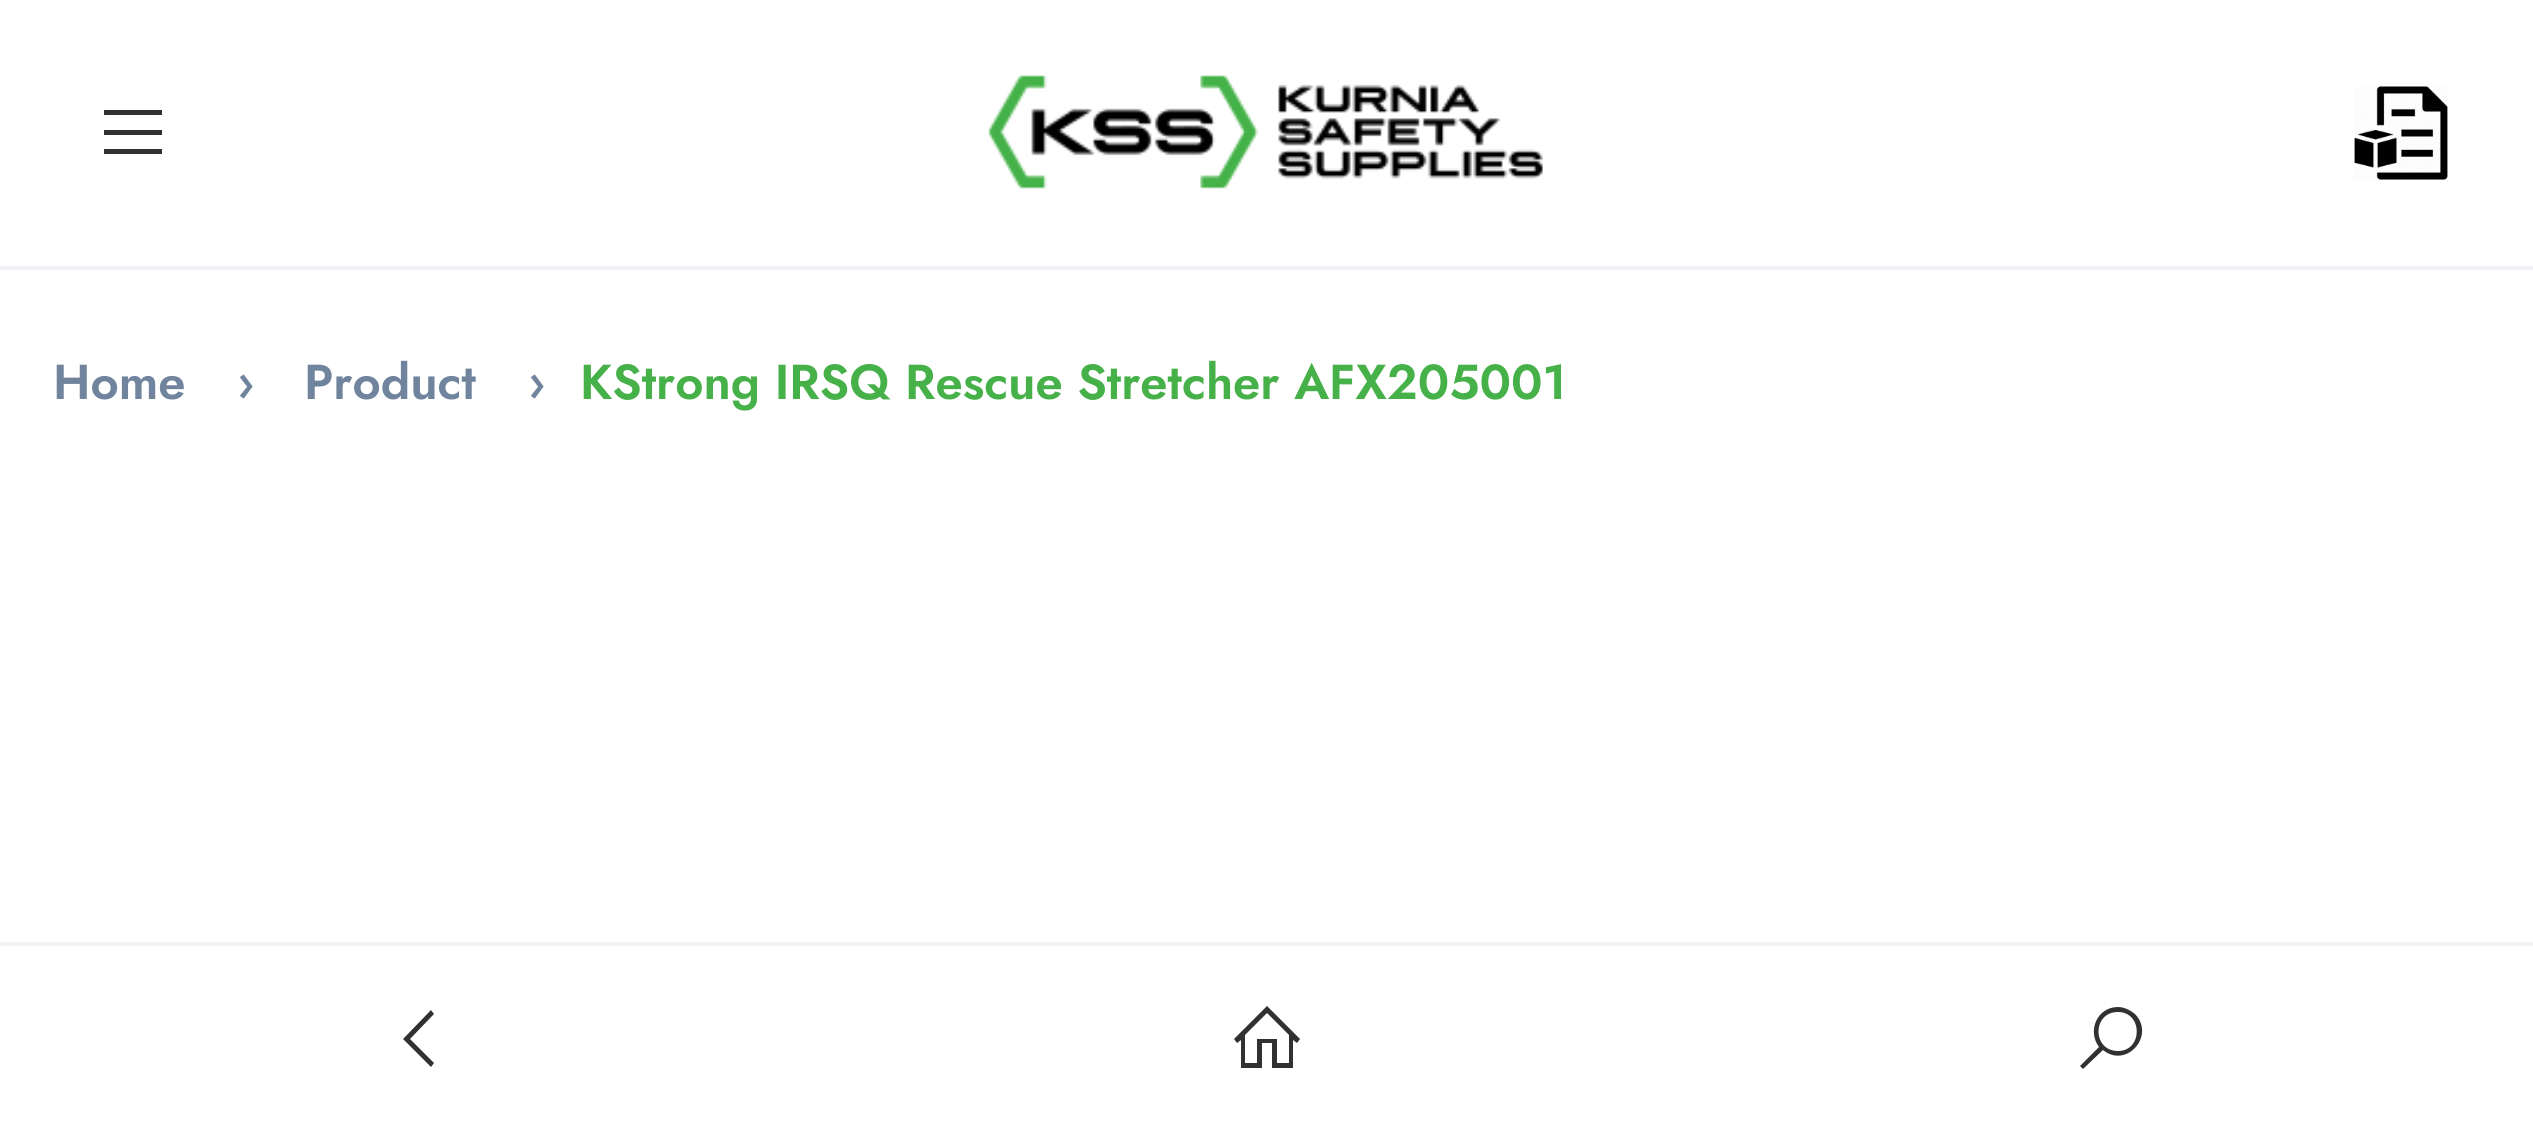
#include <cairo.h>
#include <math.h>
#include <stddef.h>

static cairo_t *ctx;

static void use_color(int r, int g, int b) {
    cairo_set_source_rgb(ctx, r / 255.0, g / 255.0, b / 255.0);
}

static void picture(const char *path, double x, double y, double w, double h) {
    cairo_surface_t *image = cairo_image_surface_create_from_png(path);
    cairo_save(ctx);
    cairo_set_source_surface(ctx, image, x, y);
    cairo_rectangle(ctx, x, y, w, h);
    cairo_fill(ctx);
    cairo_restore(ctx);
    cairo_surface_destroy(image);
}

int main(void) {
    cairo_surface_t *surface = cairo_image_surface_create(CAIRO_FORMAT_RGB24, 2533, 1134);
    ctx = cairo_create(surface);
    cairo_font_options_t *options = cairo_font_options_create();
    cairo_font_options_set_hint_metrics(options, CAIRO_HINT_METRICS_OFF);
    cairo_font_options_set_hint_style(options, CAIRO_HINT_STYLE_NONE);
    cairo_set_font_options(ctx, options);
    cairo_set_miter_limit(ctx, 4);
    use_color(255, 255, 255);
    cairo_paint(ctx);
    use_color(240, 242, 245);
    cairo_rectangle(ctx, 0, 266, 2533, 4);
    cairo_fill(ctx);
    use_color(49, 49, 49);
    cairo_new_path(ctx);
    cairo_move_to(ctx, 104, 110);
    cairo_line_to(ctx, 104, 115);
    cairo_line_to(ctx, 162, 115);
    cairo_line_to(ctx, 162, 110);
    cairo_close_path(ctx);
    cairo_move_to(ctx, 104, 130);
    cairo_line_to(ctx, 104, 135);
    cairo_line_to(ctx, 162, 135);
    cairo_line_to(ctx, 162, 130);
    cairo_close_path(ctx);
    cairo_move_to(ctx, 104, 149);
    cairo_line_to(ctx, 104, 154);
    cairo_line_to(ctx, 162, 154);
    cairo_line_to(ctx, 162, 149);
    cairo_close_path(ctx);
    cairo_fill(ctx);
    picture("img1.png", 988, 75, 555, 114);
    picture("img2.png", 2354, 86, 95, 95);
    cairo_select_font_face(ctx, "Jost SemiBold", CAIRO_FONT_SLANT_NORMAL, CAIRO_FONT_WEIGHT_NORMAL);
    cairo_set_font_size(ctx, 49);
    use_color(112, 132, 157);
    cairo_move_to(ctx, 53, 399);
    cairo_show_text(ctx, "Home");
    cairo_move_to(ctx, 237, 399);
    cairo_show_text(ctx, "›");
    cairo_move_to(ctx, 304, 399);
    cairo_show_text(ctx, "Product");
    cairo_move_to(ctx, 528, 399);
    cairo_show_text(ctx, "›");
    use_color(70, 176, 73);
    cairo_move_to(ctx, 580, 399);
    cairo_show_text(ctx, "KStrong IRSQ Rescue Stretcher AFX205001");
    use_color(240, 242, 245);
    cairo_rectangle(ctx, 0, 942, 2533, 4);
    cairo_fill(ctx);
    use_color(49, 49, 49);
    cairo_new_path(ctx);
    cairo_move_to(ctx, 431, 1010);
    cairo_line_to(ctx, 403, 1039);
    cairo_line_to(ctx, 431, 1067);
    cairo_line_to(ctx, 434, 1063);
    cairo_line_to(ctx, 410, 1039);
    cairo_line_to(ctx, 434, 1014);
    cairo_close_path(ctx);
    cairo_fill(ctx);
    cairo_new_path(ctx);
    cairo_move_to(ctx, 1267, 1006);
    cairo_line_to(ctx, 1234, 1039);
    cairo_line_to(ctx, 1237, 1043);
    cairo_line_to(ctx, 1241, 1040);
    cairo_line_to(ctx, 1241, 1068);
    cairo_line_to(ctx, 1262, 1068);
    cairo_line_to(ctx, 1262, 1043);
    cairo_line_to(ctx, 1272, 1043);
    cairo_line_to(ctx, 1272, 1068);
    cairo_line_to(ctx, 1293, 1068);
    cairo_line_to(ctx, 1293, 1040);
    cairo_line_to(ctx, 1297, 1043);
    cairo_line_to(ctx, 1300, 1039);
    cairo_close_path(ctx);
    cairo_move_to(ctx, 1267, 1013);
    cairo_line_to(ctx, 1289, 1035);
    cairo_line_to(ctx, 1289, 1063);
    cairo_line_to(ctx, 1277, 1063);
    cairo_line_to(ctx, 1277, 1039);
    cairo_line_to(ctx, 1257, 1039);
    cairo_line_to(ctx, 1257, 1063);
    cairo_line_to(ctx, 1245, 1063);
    cairo_line_to(ctx, 1245, 1035);
    cairo_close_path(ctx);
    cairo_fill(ctx);
    cairo_new_path(ctx);
    cairo_move_to(ctx, 2118, 1007);
    cairo_curve_to(ctx, 2097, 1007, 2087, 1031, 2099, 1047);
    cairo_line_to(ctx, 2080, 1066);
    cairo_line_to(ctx, 2083, 1069);
    cairo_line_to(ctx, 2103, 1050);
    cairo_curve_to(ctx, 2126, 1069, 2156, 1036, 2135, 1014);
    cairo_curve_to(ctx, 2130, 1010, 2124, 1007, 2118, 1007);
    cairo_close_path(ctx);
    cairo_move_to(ctx, 2118, 1012);
    cairo_curve_to(ctx, 2143, 1012, 2143, 1051, 2118, 1051);
    cairo_curve_to(ctx, 2092, 1051, 2092, 1012, 2118, 1012);
    cairo_close_path(ctx);
    cairo_fill(ctx);
    cairo_surface_write_to_png(surface, "result.png");
    cairo_font_options_destroy(options);
    cairo_destroy(ctx);
    cairo_surface_destroy(surface);
    return 0;
}
